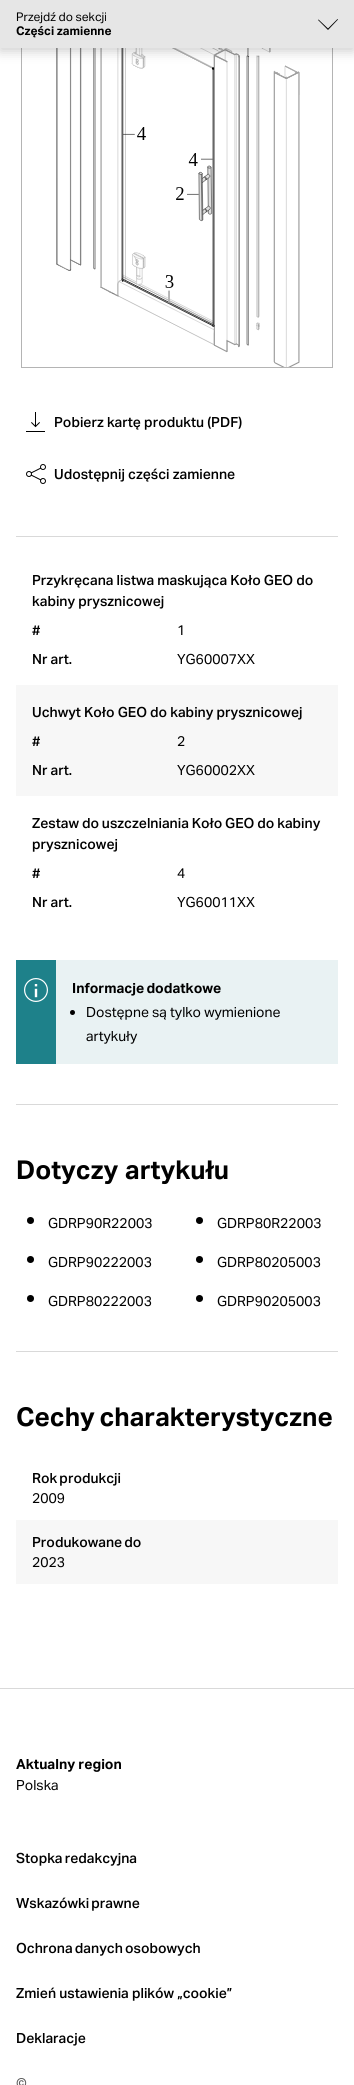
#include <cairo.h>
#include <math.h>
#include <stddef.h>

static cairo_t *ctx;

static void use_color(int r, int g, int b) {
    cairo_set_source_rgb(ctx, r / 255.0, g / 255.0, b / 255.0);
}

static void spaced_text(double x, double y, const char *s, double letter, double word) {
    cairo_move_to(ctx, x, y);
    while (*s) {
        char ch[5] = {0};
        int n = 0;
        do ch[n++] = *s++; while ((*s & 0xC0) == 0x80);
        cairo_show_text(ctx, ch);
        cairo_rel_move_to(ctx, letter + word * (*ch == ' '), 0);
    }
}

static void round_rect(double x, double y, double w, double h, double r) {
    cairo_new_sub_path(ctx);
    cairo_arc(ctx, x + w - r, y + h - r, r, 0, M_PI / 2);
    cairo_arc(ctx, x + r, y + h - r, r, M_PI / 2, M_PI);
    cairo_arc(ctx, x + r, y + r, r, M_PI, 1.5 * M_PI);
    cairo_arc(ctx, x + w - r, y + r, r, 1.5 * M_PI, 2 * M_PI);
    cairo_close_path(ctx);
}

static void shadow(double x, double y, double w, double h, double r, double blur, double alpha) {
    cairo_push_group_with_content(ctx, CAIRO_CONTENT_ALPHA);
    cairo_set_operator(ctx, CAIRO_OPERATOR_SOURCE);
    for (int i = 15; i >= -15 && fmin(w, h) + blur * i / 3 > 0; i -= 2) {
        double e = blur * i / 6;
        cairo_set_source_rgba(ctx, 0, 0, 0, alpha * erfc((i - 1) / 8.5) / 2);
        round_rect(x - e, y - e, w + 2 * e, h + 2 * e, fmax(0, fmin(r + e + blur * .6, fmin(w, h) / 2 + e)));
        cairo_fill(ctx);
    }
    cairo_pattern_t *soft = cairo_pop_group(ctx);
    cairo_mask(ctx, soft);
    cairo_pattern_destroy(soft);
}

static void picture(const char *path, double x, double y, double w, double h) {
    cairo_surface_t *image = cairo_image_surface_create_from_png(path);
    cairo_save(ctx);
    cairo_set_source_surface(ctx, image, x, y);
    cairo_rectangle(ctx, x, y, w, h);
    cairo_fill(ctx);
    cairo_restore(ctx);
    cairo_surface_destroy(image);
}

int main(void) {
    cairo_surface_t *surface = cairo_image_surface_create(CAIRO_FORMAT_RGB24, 354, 2085);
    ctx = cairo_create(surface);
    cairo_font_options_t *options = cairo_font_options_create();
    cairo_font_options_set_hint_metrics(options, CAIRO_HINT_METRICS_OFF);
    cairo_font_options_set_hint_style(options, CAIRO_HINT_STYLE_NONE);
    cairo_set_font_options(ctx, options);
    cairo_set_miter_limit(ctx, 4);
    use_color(255, 255, 255);
    cairo_paint(ctx);
    cairo_rectangle(ctx, 21.5, -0.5, 311, 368);
    use_color(180, 180, 180);
    cairo_set_line_width(ctx, 1);
    cairo_stroke(ctx);
    picture("img1.png", 56, 48, 244, 319);
    use_color(0, 0, 0);
    shadow(0, 3, 354, 48, 0, 6, 0.2);
    use_color(230, 230, 230);
    cairo_rectangle(ctx, 0, 0, 354, 48);
    cairo_fill(ctx);
    cairo_select_font_face(ctx, "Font", CAIRO_FONT_SLANT_NORMAL, CAIRO_FONT_WEIGHT_NORMAL);
    cairo_set_font_size(ctx, 12);
    use_color(0, 0, 0);
    cairo_move_to(ctx, 16, 21);
    cairo_show_text(ctx, "Przejdź do sekcji");
    cairo_select_font_face(ctx, "Font", CAIRO_FONT_SLANT_NORMAL, CAIRO_FONT_WEIGHT_BOLD);
    cairo_move_to(ctx, 16, 35);
    cairo_show_text(ctx, "Części zamienne");
    cairo_set_fill_rule(ctx, CAIRO_FILL_RULE_EVEN_ODD);
    cairo_new_path(ctx);
    cairo_move_to(ctx, 318.5, 19.5);
    cairo_line_to(ctx, 318, 20);
    cairo_line_to(ctx, 328, 30);
    cairo_line_to(ctx, 338, 19.5);
    cairo_line_to(ctx, 337.5, 19);
    cairo_line_to(ctx, 328, 28.5);
    cairo_close_path(ctx);
    cairo_fill(ctx);
    picture("img2.png", 26, 412, 19, 20);
    cairo_select_font_face(ctx, "Font Medium", CAIRO_FONT_SLANT_NORMAL, CAIRO_FONT_WEIGHT_NORMAL);
    cairo_set_font_size(ctx, 14);
    cairo_move_to(ctx, 54, 427);
    cairo_show_text(ctx, "Pobierz kartę produktu (PDF)");
    picture("img3.png", 26, 464, 20, 20);
    cairo_move_to(ctx, 54, 479);
    cairo_show_text(ctx, "Udostępnij części zamienne");
    use_color(217, 217, 217);
    cairo_rectangle(ctx, 16, 536, 322, 1);
    cairo_fill(ctx);
    use_color(0, 0, 0);
    cairo_move_to(ctx, 32, 585);
    cairo_show_text(ctx, "Przykręcana listwa maskująca Koło GEO do");
    cairo_move_to(ctx, 32, 606);
    cairo_show_text(ctx, "kabiny prysznicowej");
    cairo_move_to(ctx, 32, 635);
    cairo_show_text(ctx, "#");
    cairo_select_font_face(ctx, "Font", CAIRO_FONT_SLANT_NORMAL, CAIRO_FONT_WEIGHT_NORMAL);
    cairo_move_to(ctx, 177, 635);
    cairo_show_text(ctx, "1");
    cairo_select_font_face(ctx, "Font Medium", CAIRO_FONT_SLANT_NORMAL, CAIRO_FONT_WEIGHT_NORMAL);
    cairo_move_to(ctx, 32, 664);
    cairo_show_text(ctx, "Nr art.");
    cairo_select_font_face(ctx, "Font", CAIRO_FONT_SLANT_NORMAL, CAIRO_FONT_WEIGHT_NORMAL);
    cairo_move_to(ctx, 177, 664);
    cairo_show_text(ctx, "YG60007XX");
    use_color(247, 247, 247);
    cairo_rectangle(ctx, 16, 685, 322, 111);
    cairo_fill(ctx);
    cairo_select_font_face(ctx, "Font Medium", CAIRO_FONT_SLANT_NORMAL, CAIRO_FONT_WEIGHT_NORMAL);
    use_color(0, 0, 0);
    cairo_move_to(ctx, 32, 717);
    cairo_show_text(ctx, "Uchwyt Koło GEO do kabiny prysznicowej");
    cairo_move_to(ctx, 32, 746);
    cairo_show_text(ctx, "#");
    cairo_select_font_face(ctx, "Font", CAIRO_FONT_SLANT_NORMAL, CAIRO_FONT_WEIGHT_NORMAL);
    cairo_move_to(ctx, 177, 746);
    cairo_show_text(ctx, "2");
    cairo_select_font_face(ctx, "Font Medium", CAIRO_FONT_SLANT_NORMAL, CAIRO_FONT_WEIGHT_NORMAL);
    cairo_move_to(ctx, 32, 775);
    cairo_show_text(ctx, "Nr art.");
    cairo_select_font_face(ctx, "Font", CAIRO_FONT_SLANT_NORMAL, CAIRO_FONT_WEIGHT_NORMAL);
    cairo_move_to(ctx, 177, 775);
    cairo_show_text(ctx, "YG60002XX");
    cairo_select_font_face(ctx, "Font Medium", CAIRO_FONT_SLANT_NORMAL, CAIRO_FONT_WEIGHT_NORMAL);
    spaced_text(32, 828, "Zestaw do uszczelniania Koło GEO do kabiny", 0, -0.25);
    cairo_move_to(ctx, 32, 849);
    cairo_show_text(ctx, "prysznicowej");
    cairo_move_to(ctx, 32, 878);
    cairo_show_text(ctx, "#");
    cairo_select_font_face(ctx, "Font", CAIRO_FONT_SLANT_NORMAL, CAIRO_FONT_WEIGHT_NORMAL);
    cairo_move_to(ctx, 177, 878);
    cairo_show_text(ctx, "4");
    cairo_select_font_face(ctx, "Font Medium", CAIRO_FONT_SLANT_NORMAL, CAIRO_FONT_WEIGHT_NORMAL);
    cairo_move_to(ctx, 32, 907);
    cairo_show_text(ctx, "Nr art.");
    cairo_select_font_face(ctx, "Font", CAIRO_FONT_SLANT_NORMAL, CAIRO_FONT_WEIGHT_NORMAL);
    cairo_move_to(ctx, 177, 907);
    cairo_show_text(ctx, "YG60011XX");
    use_color(30, 129, 138);
    cairo_rectangle(ctx, 16, 960, 40, 104);
    cairo_fill(ctx);
    picture("img4.png", 24, 978, 24, 24);
    use_color(233, 242, 243);
    cairo_rectangle(ctx, 56, 960, 282, 104);
    cairo_fill(ctx);
    cairo_select_font_face(ctx, "Font", CAIRO_FONT_SLANT_NORMAL, CAIRO_FONT_WEIGHT_BOLD);
    use_color(0, 0, 0);
    spaced_text(72, 993, "Informacje dodatkowe", 0, -1);
    cairo_new_path(ctx);
    cairo_arc(ctx, 72.5, 1012.5, 2.5, 0, 2 * M_PI);
    cairo_fill(ctx);
    cairo_select_font_face(ctx, "Font", CAIRO_FONT_SLANT_NORMAL, CAIRO_FONT_WEIGHT_NORMAL);
    cairo_move_to(ctx, 86, 1017);
    cairo_show_text(ctx, "Dostępne są tylko wymienione");
    cairo_move_to(ctx, 86, 1041);
    cairo_show_text(ctx, "artykuły");
    use_color(217, 217, 217);
    cairo_rectangle(ctx, 16, 1104, 322, 1);
    cairo_fill(ctx);
    cairo_select_font_face(ctx, "Font", CAIRO_FONT_SLANT_NORMAL, CAIRO_FONT_WEIGHT_BOLD);
    cairo_set_font_size(ctx, 26);
    use_color(0, 0, 0);
    spaced_text(16, 1179, "Dotyczy artykułu", 0, 1);
    cairo_new_path(ctx);
    cairo_arc(ctx, 30.5, 1220.5, 3.5, 0, 2 * M_PI);
    cairo_fill(ctx);
    cairo_select_font_face(ctx, "Font", CAIRO_FONT_SLANT_NORMAL, CAIRO_FONT_WEIGHT_NORMAL);
    cairo_set_font_size(ctx, 14);
    cairo_move_to(ctx, 48, 1228);
    cairo_show_text(ctx, "GDRP90R22003");
    cairo_new_path(ctx);
    cairo_arc(ctx, 199.5, 1220.5, 3.5, 0, 2 * M_PI);
    cairo_fill(ctx);
    cairo_move_to(ctx, 217, 1228);
    cairo_show_text(ctx, "GDRP80R22003");
    cairo_new_path(ctx);
    cairo_arc(ctx, 30.5, 1259.5, 3.5, 0, 2 * M_PI);
    cairo_fill(ctx);
    cairo_move_to(ctx, 48, 1267);
    cairo_show_text(ctx, "GDRP90222003");
    cairo_new_path(ctx);
    cairo_arc(ctx, 199.5, 1259.5, 3.5, 0, 2 * M_PI);
    cairo_fill(ctx);
    cairo_move_to(ctx, 217, 1267);
    cairo_show_text(ctx, "GDRP80205003");
    cairo_new_path(ctx);
    cairo_arc(ctx, 30.5, 1298.5, 3.5, 0, 2 * M_PI);
    cairo_fill(ctx);
    cairo_move_to(ctx, 48, 1306);
    cairo_show_text(ctx, "GDRP80222003");
    cairo_new_path(ctx);
    cairo_arc(ctx, 199.5, 1298.5, 3.5, 0, 2 * M_PI);
    cairo_fill(ctx);
    cairo_move_to(ctx, 217, 1306);
    cairo_show_text(ctx, "GDRP90205003");
    use_color(217, 217, 217);
    cairo_rectangle(ctx, 16, 1351, 322, 1);
    cairo_fill(ctx);
    cairo_select_font_face(ctx, "Font", CAIRO_FONT_SLANT_NORMAL, CAIRO_FONT_WEIGHT_BOLD);
    cairo_set_font_size(ctx, 26);
    use_color(0, 0, 0);
    spaced_text(16, 1426, "Cechy charakterystyczne", 0, -1);
    cairo_select_font_face(ctx, "Font Medium", CAIRO_FONT_SLANT_NORMAL, CAIRO_FONT_WEIGHT_NORMAL);
    cairo_set_font_size(ctx, 14);
    spaced_text(32, 1483, "Rok produkcji", 0, -1);
    cairo_select_font_face(ctx, "Font", CAIRO_FONT_SLANT_NORMAL, CAIRO_FONT_WEIGHT_NORMAL);
    cairo_move_to(ctx, 32, 1503);
    cairo_show_text(ctx, "2009");
    use_color(247, 247, 247);
    cairo_rectangle(ctx, 16, 1520, 322, 64);
    cairo_fill(ctx);
    cairo_select_font_face(ctx, "Font Medium", CAIRO_FONT_SLANT_NORMAL, CAIRO_FONT_WEIGHT_NORMAL);
    use_color(0, 0, 0);
    spaced_text(32, 1547, "Produkowane do", 0, -1);
    cairo_select_font_face(ctx, "Font", CAIRO_FONT_SLANT_NORMAL, CAIRO_FONT_WEIGHT_NORMAL);
    cairo_move_to(ctx, 32, 1567);
    cairo_show_text(ctx, "2023");
    use_color(217, 217, 217);
    cairo_rectangle(ctx, 0, 1688, 354, 1);
    cairo_fill(ctx);
    cairo_select_font_face(ctx, "Font", CAIRO_FONT_SLANT_NORMAL, CAIRO_FONT_WEIGHT_BOLD);
    use_color(0, 0, 0);
    cairo_move_to(ctx, 16, 1769);
    cairo_show_text(ctx, "Aktualny region");
    cairo_select_font_face(ctx, "Font", CAIRO_FONT_SLANT_NORMAL, CAIRO_FONT_WEIGHT_NORMAL);
    cairo_move_to(ctx, 16, 1790);
    cairo_show_text(ctx, "Polska");
    cairo_select_font_face(ctx, "Font Medium", CAIRO_FONT_SLANT_NORMAL, CAIRO_FONT_WEIGHT_NORMAL);
    spaced_text(16, 1863, "Stopka redakcyjna", 0, -1);
    spaced_text(16, 1908, "Wskazówki prawne", 0, -1);
    spaced_text(16, 1953, "Ochrona danych osobowych", 0, -1);
    cairo_move_to(ctx, 16, 1998);
    cairo_show_text(ctx, "Zmień ustawienia plików „cookie”");
    cairo_move_to(ctx, 16, 2043);
    cairo_show_text(ctx, "Deklaracje");
    cairo_select_font_face(ctx, "Font", CAIRO_FONT_SLANT_NORMAL, CAIRO_FONT_WEIGHT_NORMAL);
    use_color(92, 92, 92);
    cairo_move_to(ctx, 16, 2088);
    cairo_show_text(ctx, "©");
    cairo_surface_write_to_png(surface, "result.png");
    cairo_font_options_destroy(options);
    cairo_destroy(ctx);
    cairo_surface_destroy(surface);
    return 0;
}
